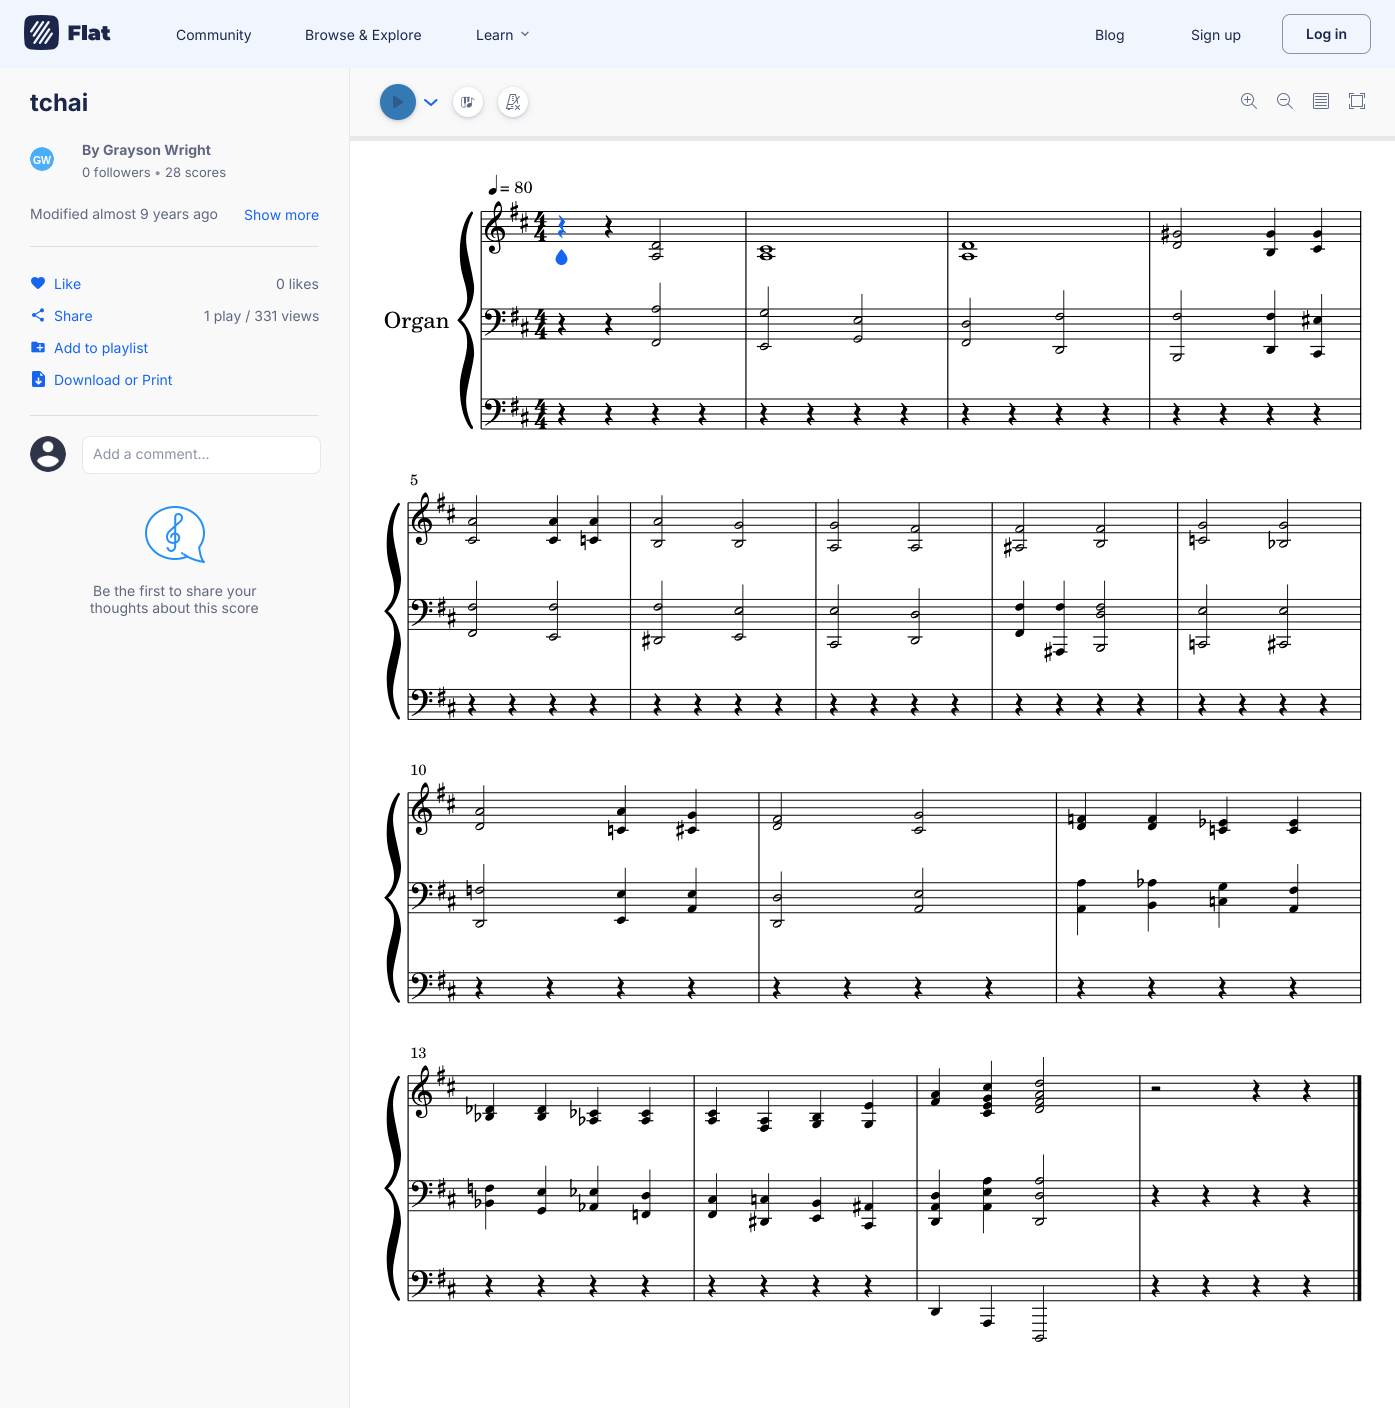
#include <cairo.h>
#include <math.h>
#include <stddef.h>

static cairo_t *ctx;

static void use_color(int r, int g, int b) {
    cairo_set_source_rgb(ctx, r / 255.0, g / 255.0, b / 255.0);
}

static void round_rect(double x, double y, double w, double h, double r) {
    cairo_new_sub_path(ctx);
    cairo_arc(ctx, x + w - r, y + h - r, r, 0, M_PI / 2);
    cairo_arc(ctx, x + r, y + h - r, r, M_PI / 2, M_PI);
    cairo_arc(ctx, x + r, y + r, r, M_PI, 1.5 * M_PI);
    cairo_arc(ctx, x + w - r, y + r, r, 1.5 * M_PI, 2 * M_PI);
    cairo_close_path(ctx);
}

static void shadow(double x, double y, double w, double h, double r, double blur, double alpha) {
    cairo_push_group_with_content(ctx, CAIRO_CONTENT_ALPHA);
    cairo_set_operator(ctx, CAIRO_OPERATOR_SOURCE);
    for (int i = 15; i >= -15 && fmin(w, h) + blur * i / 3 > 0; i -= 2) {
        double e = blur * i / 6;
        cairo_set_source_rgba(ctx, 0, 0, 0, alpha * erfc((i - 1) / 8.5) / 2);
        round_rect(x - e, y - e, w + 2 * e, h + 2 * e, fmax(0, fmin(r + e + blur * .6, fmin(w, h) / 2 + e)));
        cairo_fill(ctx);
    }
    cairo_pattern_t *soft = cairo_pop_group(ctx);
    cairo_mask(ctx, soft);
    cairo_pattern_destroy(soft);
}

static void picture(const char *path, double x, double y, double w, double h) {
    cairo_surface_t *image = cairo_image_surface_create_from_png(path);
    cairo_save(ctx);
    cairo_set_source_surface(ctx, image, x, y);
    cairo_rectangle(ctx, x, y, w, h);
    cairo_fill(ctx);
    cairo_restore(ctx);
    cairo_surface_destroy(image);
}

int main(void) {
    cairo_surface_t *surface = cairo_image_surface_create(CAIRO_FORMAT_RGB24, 1395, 1408);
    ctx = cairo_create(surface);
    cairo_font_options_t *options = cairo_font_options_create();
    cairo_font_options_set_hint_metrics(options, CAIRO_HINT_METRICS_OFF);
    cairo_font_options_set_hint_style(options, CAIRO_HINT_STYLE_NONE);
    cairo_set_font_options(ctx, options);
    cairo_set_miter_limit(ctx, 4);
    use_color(255, 255, 255);
    cairo_paint(ctx);
    use_color(241, 246, 254);
    cairo_rectangle(ctx, 0, 0, 1395, 68);
    cairo_fill(ctx);
    picture("img1.png", 24, 15, 87, 35);
    cairo_select_font_face(ctx, "Inter", CAIRO_FONT_SLANT_NORMAL, CAIRO_FONT_WEIGHT_NORMAL);
    cairo_set_font_size(ctx, 14);
    use_color(28, 38, 74);
    cairo_move_to(ctx, 176, 40);
    cairo_show_text(ctx, "Community");
    cairo_move_to(ctx, 305, 40);
    cairo_show_text(ctx, "Browse & Explore");
    cairo_move_to(ctx, 476, 40);
    cairo_show_text(ctx, "Learn");
    picture("img2.png", 521, 31, 8, 6);
    cairo_move_to(ctx, 1095, 40);
    cairo_show_text(ctx, "Blog");
    cairo_move_to(ctx, 1191, 40);
    cairo_show_text(ctx, "Sign up");
    round_rect(1282.5, 14.5, 88, 39, 7.5);
    use_color(141, 147, 165);
    cairo_set_line_width(ctx, 1);
    cairo_stroke(ctx);
    cairo_select_font_face(ctx, "Inter SemiBold", CAIRO_FONT_SLANT_NORMAL, CAIRO_FONT_WEIGHT_NORMAL);
    use_color(28, 38, 74);
    cairo_move_to(ctx, 1306, 39);
    cairo_show_text(ctx, "Log in");
    use_color(249, 249, 250);
    cairo_rectangle(ctx, 0, 68, 349, 1340);
    cairo_fill(ctx);
    use_color(231, 232, 236);
    cairo_rectangle(ctx, 349, 68, 1, 1340);
    cairo_fill(ctx);
    cairo_select_font_face(ctx, "Inter", CAIRO_FONT_SLANT_NORMAL, CAIRO_FONT_WEIGHT_BOLD);
    cairo_set_font_size(ctx, 24);
    use_color(28, 38, 74);
    cairo_move_to(ctx, 30, 111);
    cairo_show_text(ctx, "tchai");
    use_color(255, 255, 255);
    cairo_new_path(ctx);
    cairo_arc(ctx, 42, 159, 12, 0, 2 * M_PI);
    cairo_fill(ctx);
    picture("img3.png", 30, 147, 24, 24);
    cairo_set_font_size(ctx, 14);
    use_color(95, 103, 129);
    cairo_move_to(ctx, 82, 155);
    cairo_show_text(ctx, "By Grayson Wright");
    cairo_select_font_face(ctx, "Inter", CAIRO_FONT_SLANT_NORMAL, CAIRO_FONT_WEIGHT_NORMAL);
    cairo_set_font_size(ctx, 13);
    cairo_move_to(ctx, 82, 177);
    cairo_show_text(ctx, "0 followers");
    use_color(141, 147, 165);
    cairo_move_to(ctx, 154, 177);
    cairo_show_text(ctx, "•");
    use_color(95, 103, 129);
    cairo_move_to(ctx, 165, 177);
    cairo_show_text(ctx, "28 scores");
    cairo_set_font_size(ctx, 14);
    cairo_move_to(ctx, 30, 219);
    cairo_show_text(ctx, "Modified almost 9 years ago");
    use_color(21, 101, 239);
    cairo_move_to(ctx, 244, 220);
    cairo_show_text(ctx, "Show more");
    use_color(219, 222, 230);
    cairo_rectangle(ctx, 30, 246, 289, 1);
    cairo_fill(ctx);
    picture("img4.png", 31, 277, 14, 12);
    use_color(21, 101, 239);
    cairo_move_to(ctx, 54, 289);
    cairo_show_text(ctx, "Like");
    use_color(95, 103, 129);
    cairo_move_to(ctx, 276, 289);
    cairo_show_text(ctx, "0 likes");
    picture("img5.png", 32, 308, 12, 14);
    use_color(21, 101, 239);
    cairo_move_to(ctx, 54, 321);
    cairo_show_text(ctx, "Share");
    use_color(95, 103, 129);
    cairo_move_to(ctx, 204, 321);
    cairo_show_text(ctx, "1 play / 331 views");
    picture("img6.png", 31, 341, 14, 12);
    use_color(21, 101, 239);
    cairo_move_to(ctx, 54, 353);
    cairo_show_text(ctx, "Add to playlist");
    picture("img7.png", 32, 371, 13, 16);
    cairo_move_to(ctx, 54, 385);
    cairo_show_text(ctx, "Download or Print");
    use_color(219, 222, 230);
    cairo_rectangle(ctx, 30, 415, 289, 1);
    cairo_fill(ctx);
    use_color(255, 255, 255);
    cairo_arc(ctx, 48, 454, 18, 0, 2 * M_PI);
    cairo_fill(ctx);
    picture("img8.png", 30, 436, 36, 36);
    round_rect(82.5, 436.5, 238, 37, 7.5);
    cairo_fill_preserve(ctx);
    use_color(231, 232, 236);
    cairo_stroke(ctx);
    use_color(141, 147, 165);
    cairo_move_to(ctx, 93, 459);
    cairo_show_text(ctx, "Add a comment...");
    picture("img9.png", 145, 506, 60, 57);
    use_color(95, 103, 129);
    cairo_move_to(ctx, 93, 596);
    cairo_show_text(ctx, "Be the first to share your");
    cairo_move_to(ctx, 90, 613);
    cairo_show_text(ctx, "thoughts about this score");
    use_color(249, 249, 250);
    cairo_rectangle(ctx, 350, 68, 1045, 68);
    cairo_fill(ctx);
    use_color(40, 48, 79);
    shadow(380, 85, 36, 36, 18, 1.5, 0.2);
    shadow(380, 86, 36, 36, 18, 4, 0.1);
    use_color(53, 121, 180);
    cairo_arc(ctx, 398, 102, 18, 0, 2 * M_PI);
    cairo_fill(ctx);
    picture("img10.png", 393, 96, 10, 12);
    cairo_new_path(ctx);
    cairo_move_to(ctx, 425, 100);
    cairo_line_to(ctx, 431, 105);
    cairo_line_to(ctx, 436.5, 100);
    use_color(21, 101, 239);
    cairo_set_line_width(ctx, 2);
    cairo_set_line_cap(ctx, CAIRO_LINE_CAP_ROUND);
    cairo_set_line_join(ctx, CAIRO_LINE_JOIN_ROUND);
    cairo_stroke(ctx);
    use_color(40, 48, 79);
    shadow(453, 88, 30, 30, 15, 1.5, 0.2);
    shadow(453, 89, 30, 30, 15, 4, 0.1);
    use_color(255, 255, 255);
    cairo_arc(ctx, 468, 102, 15, 0, 2 * M_PI);
    cairo_fill(ctx);
    picture("img11.png", 461, 96, 14, 12);
    use_color(40, 48, 79);
    shadow(498, 88, 30, 30, 15, 1.5, 0.2);
    shadow(498, 89, 30, 30, 15, 4, 0.1);
    use_color(255, 255, 255);
    cairo_arc(ctx, 513, 102, 15, 0, 2 * M_PI);
    cairo_fill(ctx);
    picture("img12.png", 506, 94, 14, 16);
    picture("img13.png", 1241, 93, 16, 16);
    picture("img14.png", 1277, 93, 16, 16);
    picture("img15.png", 1313, 93, 16, 16);
    picture("img16.png", 1349, 93, 16, 16);
    use_color(231, 232, 236);
    cairo_rectangle(ctx, 350, 136, 1045, 5);
    cairo_fill(ctx);
    picture("img17.png", 384, 174, 978, 256);
    picture("img18.png", 384, 474, 978, 246);
    picture("img19.png", 384, 764, 978, 240);
    picture("img20.png", 384, 1047, 978, 295);
    cairo_surface_write_to_png(surface, "result.png");
    cairo_font_options_destroy(options);
    cairo_destroy(ctx);
    cairo_surface_destroy(surface);
    return 0;
}
